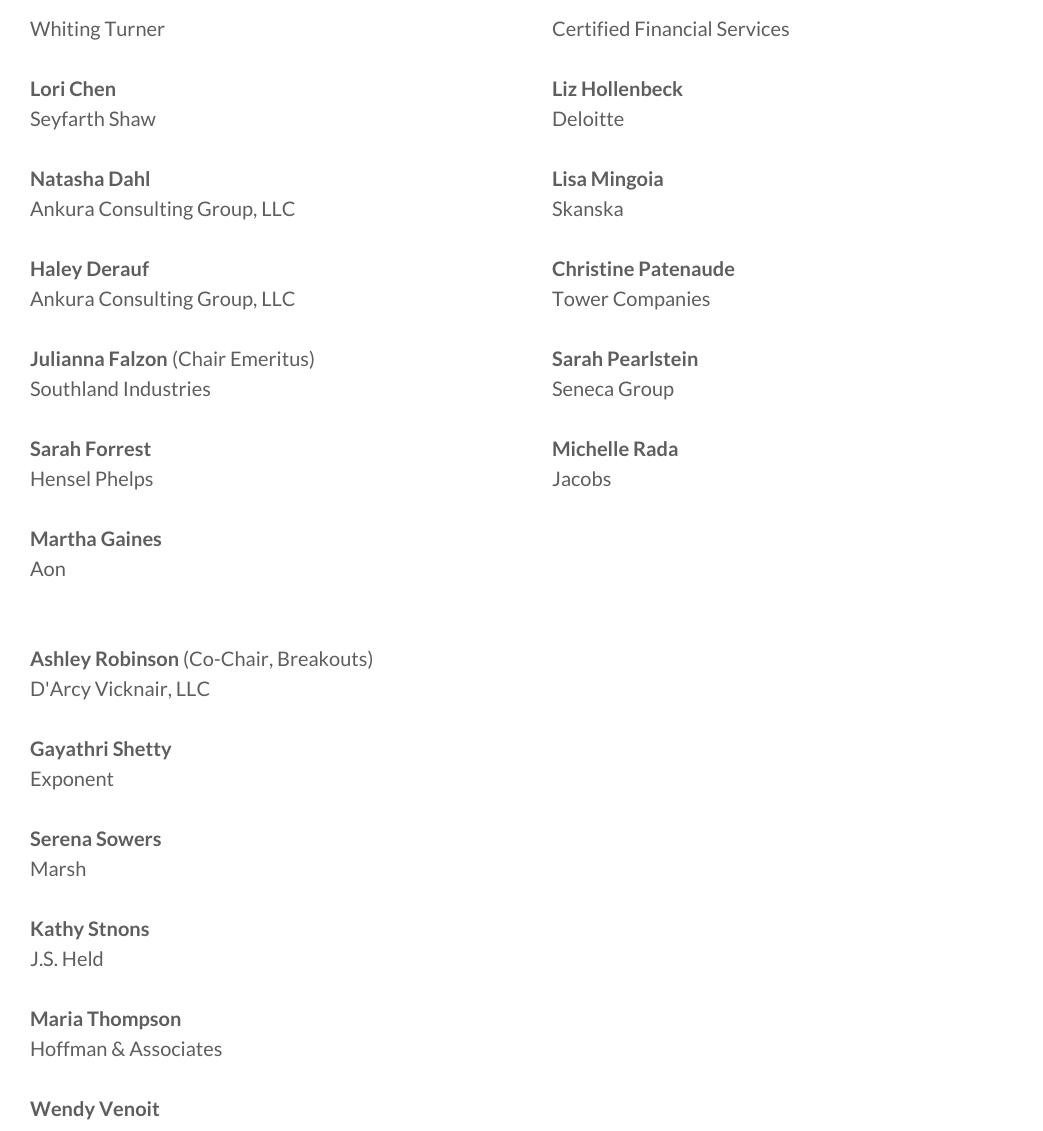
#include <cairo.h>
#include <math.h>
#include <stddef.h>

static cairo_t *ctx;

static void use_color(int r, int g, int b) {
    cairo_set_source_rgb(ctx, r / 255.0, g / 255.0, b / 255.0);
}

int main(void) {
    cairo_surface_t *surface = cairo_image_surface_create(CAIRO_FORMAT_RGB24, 1043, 1131);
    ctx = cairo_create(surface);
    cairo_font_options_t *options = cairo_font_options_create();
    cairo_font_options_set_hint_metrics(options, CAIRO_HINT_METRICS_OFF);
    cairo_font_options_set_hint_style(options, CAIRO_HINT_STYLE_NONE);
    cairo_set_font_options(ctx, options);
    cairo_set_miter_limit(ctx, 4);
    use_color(255, 255, 255);
    cairo_paint(ctx);
    cairo_select_font_face(ctx, "Lato", CAIRO_FONT_SLANT_NORMAL, CAIRO_FONT_WEIGHT_NORMAL);
    cairo_set_font_size(ctx, 20);
    use_color(94, 94, 94);
    cairo_move_to(ctx, 30, 36);
    cairo_show_text(ctx, "Whiting Turner");
    cairo_select_font_face(ctx, "Lato", CAIRO_FONT_SLANT_NORMAL, CAIRO_FONT_WEIGHT_BOLD);
    cairo_move_to(ctx, 30, 96);
    cairo_show_text(ctx, "Lori Chen");
    cairo_select_font_face(ctx, "Lato", CAIRO_FONT_SLANT_NORMAL, CAIRO_FONT_WEIGHT_NORMAL);
    cairo_move_to(ctx, 30, 126);
    cairo_show_text(ctx, "Seyfarth Shaw");
    cairo_select_font_face(ctx, "Lato", CAIRO_FONT_SLANT_NORMAL, CAIRO_FONT_WEIGHT_BOLD);
    cairo_move_to(ctx, 30, 186);
    cairo_show_text(ctx, "Natasha Dahl");
    cairo_select_font_face(ctx, "Lato", CAIRO_FONT_SLANT_NORMAL, CAIRO_FONT_WEIGHT_NORMAL);
    cairo_move_to(ctx, 30, 216);
    cairo_show_text(ctx, "Ankura Consulting Group, LLC");
    cairo_select_font_face(ctx, "Lato", CAIRO_FONT_SLANT_NORMAL, CAIRO_FONT_WEIGHT_BOLD);
    cairo_move_to(ctx, 30, 276);
    cairo_show_text(ctx, "Haley Derauf");
    cairo_select_font_face(ctx, "Lato", CAIRO_FONT_SLANT_NORMAL, CAIRO_FONT_WEIGHT_NORMAL);
    cairo_move_to(ctx, 30, 306);
    cairo_show_text(ctx, "Ankura Consulting Group, LLC");
    cairo_select_font_face(ctx, "Lato", CAIRO_FONT_SLANT_NORMAL, CAIRO_FONT_WEIGHT_BOLD);
    cairo_move_to(ctx, 30, 366);
    cairo_show_text(ctx, "Julianna Falzon");
    cairo_select_font_face(ctx, "Lato", CAIRO_FONT_SLANT_NORMAL, CAIRO_FONT_WEIGHT_NORMAL);
    cairo_move_to(ctx, 172, 366);
    cairo_show_text(ctx, "(Chair Emeritus)");
    cairo_move_to(ctx, 30, 396);
    cairo_show_text(ctx, "Southland Industries");
    cairo_select_font_face(ctx, "Lato", CAIRO_FONT_SLANT_NORMAL, CAIRO_FONT_WEIGHT_BOLD);
    cairo_move_to(ctx, 30, 456);
    cairo_show_text(ctx, "Sarah Forrest");
    cairo_select_font_face(ctx, "Lato", CAIRO_FONT_SLANT_NORMAL, CAIRO_FONT_WEIGHT_NORMAL);
    cairo_move_to(ctx, 30, 486);
    cairo_show_text(ctx, "Hensel Phelps");
    cairo_select_font_face(ctx, "Lato", CAIRO_FONT_SLANT_NORMAL, CAIRO_FONT_WEIGHT_BOLD);
    cairo_move_to(ctx, 30, 546);
    cairo_show_text(ctx, "Martha Gaines");
    cairo_select_font_face(ctx, "Lato", CAIRO_FONT_SLANT_NORMAL, CAIRO_FONT_WEIGHT_NORMAL);
    cairo_move_to(ctx, 30, 576);
    cairo_show_text(ctx, "Aon");
    cairo_move_to(ctx, 552, 36);
    cairo_show_text(ctx, "Certified Financial Services");
    cairo_select_font_face(ctx, "Lato", CAIRO_FONT_SLANT_NORMAL, CAIRO_FONT_WEIGHT_BOLD);
    cairo_move_to(ctx, 552, 96);
    cairo_show_text(ctx, "Liz Hollenbeck");
    cairo_select_font_face(ctx, "Lato", CAIRO_FONT_SLANT_NORMAL, CAIRO_FONT_WEIGHT_NORMAL);
    cairo_move_to(ctx, 552, 126);
    cairo_show_text(ctx, "Deloitte");
    cairo_select_font_face(ctx, "Lato", CAIRO_FONT_SLANT_NORMAL, CAIRO_FONT_WEIGHT_BOLD);
    cairo_move_to(ctx, 552, 186);
    cairo_show_text(ctx, "Lisa Mingoia");
    cairo_select_font_face(ctx, "Lato", CAIRO_FONT_SLANT_NORMAL, CAIRO_FONT_WEIGHT_NORMAL);
    cairo_move_to(ctx, 552, 216);
    cairo_show_text(ctx, "Skanska");
    cairo_select_font_face(ctx, "Lato", CAIRO_FONT_SLANT_NORMAL, CAIRO_FONT_WEIGHT_BOLD);
    cairo_move_to(ctx, 552, 276);
    cairo_show_text(ctx, "Christine Patenaude");
    cairo_select_font_face(ctx, "Lato", CAIRO_FONT_SLANT_NORMAL, CAIRO_FONT_WEIGHT_NORMAL);
    cairo_move_to(ctx, 552, 306);
    cairo_show_text(ctx, "Tower Companies");
    cairo_select_font_face(ctx, "Lato", CAIRO_FONT_SLANT_NORMAL, CAIRO_FONT_WEIGHT_BOLD);
    cairo_move_to(ctx, 552, 366);
    cairo_show_text(ctx, "Sarah Pearlstein");
    cairo_select_font_face(ctx, "Lato", CAIRO_FONT_SLANT_NORMAL, CAIRO_FONT_WEIGHT_NORMAL);
    cairo_move_to(ctx, 552, 396);
    cairo_show_text(ctx, "Seneca Group");
    cairo_select_font_face(ctx, "Lato", CAIRO_FONT_SLANT_NORMAL, CAIRO_FONT_WEIGHT_BOLD);
    cairo_move_to(ctx, 552, 456);
    cairo_show_text(ctx, "Michelle Rada");
    cairo_select_font_face(ctx, "Lato", CAIRO_FONT_SLANT_NORMAL, CAIRO_FONT_WEIGHT_NORMAL);
    cairo_move_to(ctx, 552, 486);
    cairo_show_text(ctx, "Jacobs");
    cairo_select_font_face(ctx, "Lato", CAIRO_FONT_SLANT_NORMAL, CAIRO_FONT_WEIGHT_BOLD);
    cairo_move_to(ctx, 30, 666);
    cairo_show_text(ctx, "Ashley Robinson");
    cairo_select_font_face(ctx, "Lato", CAIRO_FONT_SLANT_NORMAL, CAIRO_FONT_WEIGHT_NORMAL);
    cairo_move_to(ctx, 183, 666);
    cairo_show_text(ctx, "(Co-Chair, Breakouts)");
    cairo_move_to(ctx, 30, 696);
    cairo_show_text(ctx, "D'Arcy Vicknair, LLC");
    cairo_select_font_face(ctx, "Lato", CAIRO_FONT_SLANT_NORMAL, CAIRO_FONT_WEIGHT_BOLD);
    cairo_move_to(ctx, 30, 756);
    cairo_show_text(ctx, "Gayathri Shetty");
    cairo_select_font_face(ctx, "Lato", CAIRO_FONT_SLANT_NORMAL, CAIRO_FONT_WEIGHT_NORMAL);
    cairo_move_to(ctx, 30, 786);
    cairo_show_text(ctx, "Exponent");
    cairo_select_font_face(ctx, "Lato", CAIRO_FONT_SLANT_NORMAL, CAIRO_FONT_WEIGHT_BOLD);
    cairo_move_to(ctx, 30, 846);
    cairo_show_text(ctx, "Serena Sowers");
    cairo_select_font_face(ctx, "Lato", CAIRO_FONT_SLANT_NORMAL, CAIRO_FONT_WEIGHT_NORMAL);
    cairo_move_to(ctx, 30, 876);
    cairo_show_text(ctx, "Marsh");
    cairo_select_font_face(ctx, "Lato", CAIRO_FONT_SLANT_NORMAL, CAIRO_FONT_WEIGHT_BOLD);
    cairo_move_to(ctx, 30, 936);
    cairo_show_text(ctx, "Kathy Stnons");
    cairo_select_font_face(ctx, "Lato", CAIRO_FONT_SLANT_NORMAL, CAIRO_FONT_WEIGHT_NORMAL);
    cairo_move_to(ctx, 30, 966);
    cairo_show_text(ctx, "J.S. Held");
    cairo_select_font_face(ctx, "Lato", CAIRO_FONT_SLANT_NORMAL, CAIRO_FONT_WEIGHT_BOLD);
    cairo_move_to(ctx, 30, 1026);
    cairo_show_text(ctx, "Maria Thompson");
    cairo_select_font_face(ctx, "Lato", CAIRO_FONT_SLANT_NORMAL, CAIRO_FONT_WEIGHT_NORMAL);
    cairo_move_to(ctx, 30, 1056);
    cairo_show_text(ctx, "Hoffman & Associates");
    cairo_select_font_face(ctx, "Lato", CAIRO_FONT_SLANT_NORMAL, CAIRO_FONT_WEIGHT_BOLD);
    cairo_move_to(ctx, 30, 1116);
    cairo_show_text(ctx, "Wendy Venoit");
    cairo_surface_write_to_png(surface, "result.png");
    cairo_font_options_destroy(options);
    cairo_destroy(ctx);
    cairo_surface_destroy(surface);
    return 0;
}
